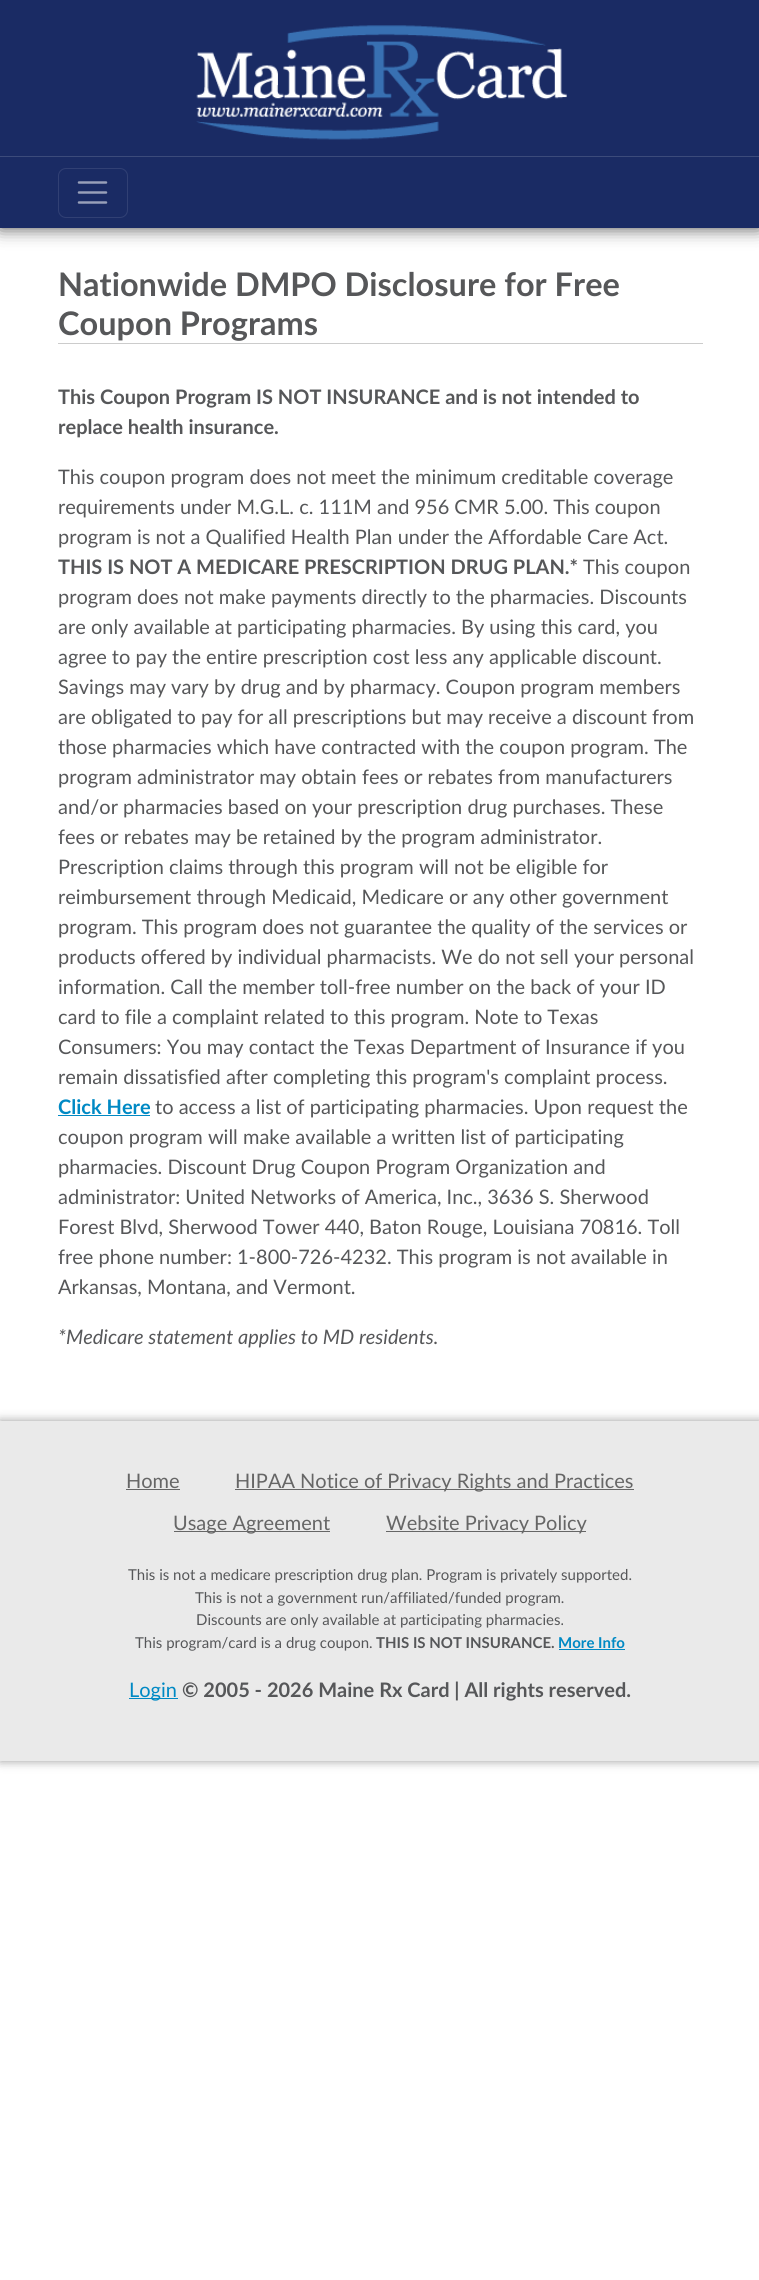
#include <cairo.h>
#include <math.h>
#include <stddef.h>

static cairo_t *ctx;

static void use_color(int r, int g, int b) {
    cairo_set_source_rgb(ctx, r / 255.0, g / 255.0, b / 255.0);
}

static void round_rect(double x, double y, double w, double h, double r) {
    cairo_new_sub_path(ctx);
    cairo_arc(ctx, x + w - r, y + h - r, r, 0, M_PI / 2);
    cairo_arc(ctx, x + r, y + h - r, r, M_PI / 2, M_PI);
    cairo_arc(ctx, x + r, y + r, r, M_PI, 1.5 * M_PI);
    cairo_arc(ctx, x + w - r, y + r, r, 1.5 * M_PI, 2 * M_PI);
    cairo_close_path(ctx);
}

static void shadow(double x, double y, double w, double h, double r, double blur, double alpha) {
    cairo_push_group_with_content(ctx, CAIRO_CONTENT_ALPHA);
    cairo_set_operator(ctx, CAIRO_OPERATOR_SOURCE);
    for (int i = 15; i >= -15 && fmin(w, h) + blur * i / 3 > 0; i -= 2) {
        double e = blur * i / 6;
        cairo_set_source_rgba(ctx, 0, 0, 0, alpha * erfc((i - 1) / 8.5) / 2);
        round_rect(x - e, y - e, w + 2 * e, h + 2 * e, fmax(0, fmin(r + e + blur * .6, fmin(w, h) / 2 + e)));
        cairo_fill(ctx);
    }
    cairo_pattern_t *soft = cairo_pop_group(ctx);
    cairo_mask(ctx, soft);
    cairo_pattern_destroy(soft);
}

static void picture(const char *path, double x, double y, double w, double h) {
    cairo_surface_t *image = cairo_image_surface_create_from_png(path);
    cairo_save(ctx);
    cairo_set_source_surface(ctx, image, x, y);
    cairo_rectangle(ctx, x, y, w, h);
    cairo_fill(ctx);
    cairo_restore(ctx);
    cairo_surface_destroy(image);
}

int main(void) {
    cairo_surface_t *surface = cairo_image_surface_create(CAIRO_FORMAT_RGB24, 759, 2280);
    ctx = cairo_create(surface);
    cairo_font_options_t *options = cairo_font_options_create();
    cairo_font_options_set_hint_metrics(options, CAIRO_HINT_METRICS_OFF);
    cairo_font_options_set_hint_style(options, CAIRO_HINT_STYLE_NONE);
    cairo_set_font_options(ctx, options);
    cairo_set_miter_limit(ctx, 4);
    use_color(255, 255, 255);
    cairo_paint(ctx);
    use_color(0, 0, 0);
    shadow(0, 0, 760, 228, 0, 9, 0.7);
    use_color(26, 43, 100);
    cairo_rectangle(ctx, 0, 0, 759, 228);
    cairo_fill(ctx);
    picture("img1.png", 196, 25, 371, 115);
    use_color(60, 75, 123);
    cairo_rectangle(ctx, 0, 156, 759, 1);
    cairo_fill(ctx);
    round_rect(58.5, 168.5, 69, 49, 7.5);
    use_color(49, 64, 116);
    cairo_set_line_width(ctx, 1);
    cairo_stroke(ctx);
    cairo_new_path(ctx);
    cairo_move_to(ctx, 79, 182.5);
    cairo_line_to(ctx, 106, 182.5);
    cairo_move_to(ctx, 79, 192.5);
    cairo_line_to(ctx, 106, 192.5);
    cairo_move_to(ctx, 79, 202.5);
    cairo_line_to(ctx, 106, 202.5);
    use_color(152, 160, 185);
    cairo_set_line_width(ctx, 2.5);
    cairo_set_line_cap(ctx, CAIRO_LINE_CAP_ROUND);
    cairo_stroke(ctx);
    use_color(204, 204, 204);
    cairo_rectangle(ctx, 58, 343, 645, 1);
    cairo_fill(ctx);
    cairo_select_font_face(ctx, "Lato", CAIRO_FONT_SLANT_NORMAL, CAIRO_FONT_WEIGHT_BOLD);
    cairo_set_font_size(ctx, 32.5);
    use_color(86, 87, 89);
    cairo_move_to(ctx, 58, 296);
    cairo_show_text(ctx, "Nationwide DMPO Disclosure for Free");
    cairo_move_to(ctx, 58, 335);
    cairo_show_text(ctx, "Coupon Programs");
    cairo_set_font_size(ctx, 20);
    cairo_move_to(ctx, 58, 404);
    cairo_show_text(ctx, "This Coupon Program IS NOT INSURANCE and is not intended to");
    cairo_move_to(ctx, 58, 434);
    cairo_show_text(ctx, "replace health insurance.");
    cairo_select_font_face(ctx, "Lato", CAIRO_FONT_SLANT_NORMAL, CAIRO_FONT_WEIGHT_NORMAL);
    cairo_move_to(ctx, 58, 484);
    cairo_show_text(ctx, "This coupon program does not meet the minimum creditable coverage");
    cairo_move_to(ctx, 58, 514);
    cairo_show_text(ctx, "requirements under M.G.L. c. 111M and 956 CMR 5.00. This coupon");
    cairo_move_to(ctx, 58, 544);
    cairo_show_text(ctx, "program is not a Qualified Health Plan under the Affordable Care Act.");
    cairo_select_font_face(ctx, "Lato", CAIRO_FONT_SLANT_NORMAL, CAIRO_FONT_WEIGHT_BOLD);
    cairo_move_to(ctx, 58, 574);
    cairo_show_text(ctx, "THIS IS NOT A MEDICARE PRESCRIPTION DRUG PLAN.*");
    cairo_select_font_face(ctx, "Lato", CAIRO_FONT_SLANT_NORMAL, CAIRO_FONT_WEIGHT_NORMAL);
    cairo_move_to(ctx, 583, 574);
    cairo_show_text(ctx, "This coupon");
    cairo_move_to(ctx, 58, 604);
    cairo_show_text(ctx, "program does not make payments directly to the pharmacies. Discounts");
    cairo_move_to(ctx, 58, 634);
    cairo_show_text(ctx, "are only available at participating pharmacies. By using this card, you");
    cairo_move_to(ctx, 58, 664);
    cairo_show_text(ctx, "agree to pay the entire prescription cost less any applicable discount.");
    cairo_move_to(ctx, 58, 694);
    cairo_show_text(ctx, "Savings may vary by drug and by pharmacy. Coupon program members");
    cairo_move_to(ctx, 58, 724);
    cairo_show_text(ctx, "are obligated to pay for all prescriptions but may receive a discount from");
    cairo_move_to(ctx, 58, 754);
    cairo_show_text(ctx, "those pharmacies which have contracted with the coupon program. The");
    cairo_move_to(ctx, 58, 784);
    cairo_show_text(ctx, "program administrator may obtain fees or rebates from manufacturers");
    cairo_move_to(ctx, 58, 814);
    cairo_show_text(ctx, "and/or pharmacies based on your prescription drug purchases. These");
    cairo_move_to(ctx, 58, 844);
    cairo_show_text(ctx, "fees or rebates may be retained by the program administrator.");
    cairo_move_to(ctx, 58, 874);
    cairo_show_text(ctx, "Prescription claims through this program will not be eligible for");
    cairo_move_to(ctx, 58, 904);
    cairo_show_text(ctx, "reimbursement through Medicaid, Medicare or any other government");
    cairo_move_to(ctx, 58, 934);
    cairo_show_text(ctx, "program. This program does not guarantee the quality of the services or");
    cairo_move_to(ctx, 58, 964);
    cairo_show_text(ctx, "products offered by individual pharmacists. We do not sell your personal");
    cairo_move_to(ctx, 58, 994);
    cairo_show_text(ctx, "information. Call the member toll-free number on the back of your ID");
    cairo_move_to(ctx, 58, 1024);
    cairo_show_text(ctx, "card to file a complaint related to this program. Note to Texas");
    cairo_move_to(ctx, 58, 1054);
    cairo_show_text(ctx, "Consumers: You may contact the Texas Department of Insurance if you");
    cairo_move_to(ctx, 58, 1084);
    cairo_show_text(ctx, "remain dissatisfied after completing this program's complaint process.");
    cairo_select_font_face(ctx, "Lato", CAIRO_FONT_SLANT_NORMAL, CAIRO_FONT_WEIGHT_BOLD);
    use_color(0, 137, 196);
    cairo_move_to(ctx, 58, 1114);
    cairo_show_text(ctx, "Click Here");
    cairo_rectangle(ctx, 58, 1115, 92, 1);
    cairo_fill(ctx);
    cairo_select_font_face(ctx, "Lato", CAIRO_FONT_SLANT_NORMAL, CAIRO_FONT_WEIGHT_NORMAL);
    use_color(86, 87, 89);
    cairo_move_to(ctx, 155, 1114);
    cairo_show_text(ctx, "to access a list of participating pharmacies. Upon request the");
    cairo_move_to(ctx, 58, 1144);
    cairo_show_text(ctx, "coupon program will make available a written list of participating");
    cairo_move_to(ctx, 58, 1174);
    cairo_show_text(ctx, "pharmacies. Discount Drug Coupon Program Organization and");
    cairo_move_to(ctx, 58, 1204);
    cairo_show_text(ctx, "administrator: United Networks of America, Inc., 3636 S. Sherwood");
    cairo_move_to(ctx, 58, 1234);
    cairo_show_text(ctx, "Forest Blvd, Sherwood Tower 440, Baton Rouge, Louisiana 70816. Toll");
    cairo_move_to(ctx, 58, 1264);
    cairo_show_text(ctx, "free phone number: 1-800-726-4232. This program is not available in");
    cairo_move_to(ctx, 58, 1294);
    cairo_show_text(ctx, "Arkansas, Montana, and Vermont.");
    cairo_select_font_face(ctx, "Lato", CAIRO_FONT_SLANT_ITALIC, CAIRO_FONT_WEIGHT_NORMAL);
    cairo_move_to(ctx, 58, 1344);
    cairo_show_text(ctx, "*Medicare statement applies to MD residents.");
    use_color(0, 0, 0);
    shadow(0, 1421, 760, 340, 0, 5, 0.4);
    use_color(234, 234, 234);
    cairo_rectangle(ctx, 0, 1421, 759, 340);
    cairo_fill(ctx);
    cairo_select_font_face(ctx, "Lato", CAIRO_FONT_SLANT_NORMAL, CAIRO_FONT_WEIGHT_NORMAL);
    use_color(102, 102, 102);
    cairo_move_to(ctx, 126, 1488);
    cairo_show_text(ctx, "Home");
    cairo_rectangle(ctx, 126, 1489, 54, 1);
    cairo_fill(ctx);
    cairo_rectangle(ctx, 235, 1489, 399, 1);
    cairo_fill(ctx);
    cairo_move_to(ctx, 235, 1488);
    cairo_show_text(ctx, "HIPAA Notice of Privacy Rights and Practices");
    cairo_rectangle(ctx, 174, 1531, 156, 1);
    cairo_fill(ctx);
    cairo_move_to(ctx, 173, 1530);
    cairo_show_text(ctx, "Usage Agreement");
    cairo_rectangle(ctx, 386, 1531, 200, 1);
    cairo_fill(ctx);
    cairo_move_to(ctx, 386, 1530);
    cairo_show_text(ctx, "Website Privacy Policy");
    cairo_set_font_size(ctx, 15);
    use_color(86, 87, 89);
    cairo_move_to(ctx, 128, 1580);
    cairo_show_text(ctx, "This is not a medicare prescription drug plan. Program is privately supported.");
    cairo_move_to(ctx, 195, 1603);
    cairo_show_text(ctx, "This is not a government run/affiliated/funded program.");
    cairo_move_to(ctx, 196, 1625);
    cairo_show_text(ctx, "Discounts are only available at participating pharmacies.");
    cairo_move_to(ctx, 135, 1648);
    cairo_show_text(ctx, "This program/card is a drug coupon.");
    cairo_select_font_face(ctx, "Lato", CAIRO_FONT_SLANT_NORMAL, CAIRO_FONT_WEIGHT_BOLD);
    cairo_move_to(ctx, 376, 1648);
    cairo_show_text(ctx, "THIS IS NOT INSURANCE.");
    use_color(0, 137, 196);
    cairo_move_to(ctx, 558, 1648);
    cairo_show_text(ctx, "More Info");
    cairo_rectangle(ctx, 559, 1649, 66, 1);
    cairo_fill(ctx);
    cairo_rectangle(ctx, 129, 1698, 49, 1);
    cairo_fill(ctx);
    cairo_select_font_face(ctx, "Lato", CAIRO_FONT_SLANT_NORMAL, CAIRO_FONT_WEIGHT_NORMAL);
    cairo_set_font_size(ctx, 20);
    cairo_move_to(ctx, 129, 1697);
    cairo_show_text(ctx, "Login");
    cairo_select_font_face(ctx, "Lato", CAIRO_FONT_SLANT_NORMAL, CAIRO_FONT_WEIGHT_BOLD);
    use_color(86, 87, 89);
    cairo_move_to(ctx, 182, 1697);
    cairo_show_text(ctx, "© 2005 - 2026 Maine Rx Card | All rights reserved.");
    cairo_surface_write_to_png(surface, "result.png");
    cairo_font_options_destroy(options);
    cairo_destroy(ctx);
    cairo_surface_destroy(surface);
    return 0;
}
